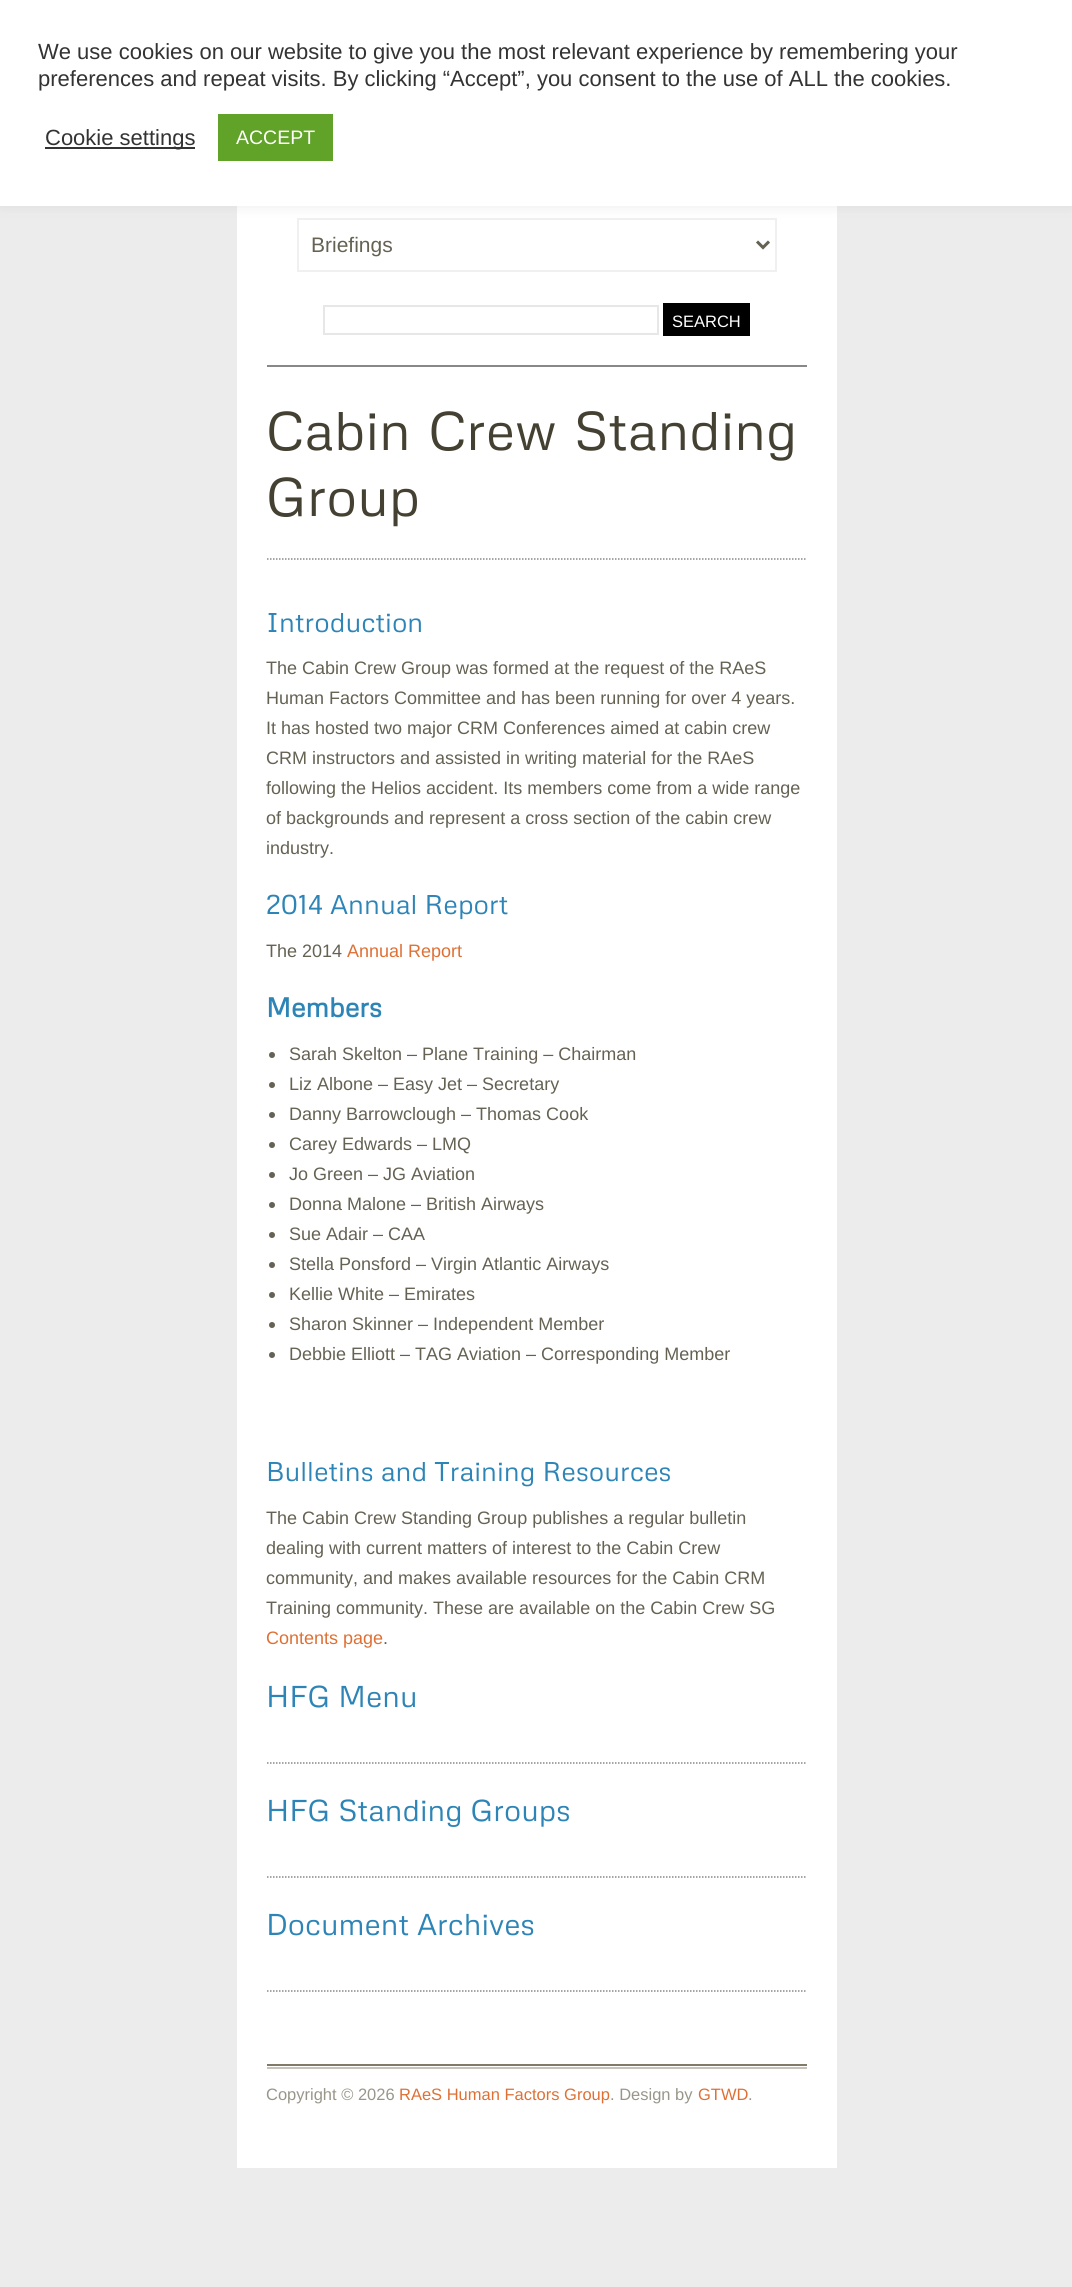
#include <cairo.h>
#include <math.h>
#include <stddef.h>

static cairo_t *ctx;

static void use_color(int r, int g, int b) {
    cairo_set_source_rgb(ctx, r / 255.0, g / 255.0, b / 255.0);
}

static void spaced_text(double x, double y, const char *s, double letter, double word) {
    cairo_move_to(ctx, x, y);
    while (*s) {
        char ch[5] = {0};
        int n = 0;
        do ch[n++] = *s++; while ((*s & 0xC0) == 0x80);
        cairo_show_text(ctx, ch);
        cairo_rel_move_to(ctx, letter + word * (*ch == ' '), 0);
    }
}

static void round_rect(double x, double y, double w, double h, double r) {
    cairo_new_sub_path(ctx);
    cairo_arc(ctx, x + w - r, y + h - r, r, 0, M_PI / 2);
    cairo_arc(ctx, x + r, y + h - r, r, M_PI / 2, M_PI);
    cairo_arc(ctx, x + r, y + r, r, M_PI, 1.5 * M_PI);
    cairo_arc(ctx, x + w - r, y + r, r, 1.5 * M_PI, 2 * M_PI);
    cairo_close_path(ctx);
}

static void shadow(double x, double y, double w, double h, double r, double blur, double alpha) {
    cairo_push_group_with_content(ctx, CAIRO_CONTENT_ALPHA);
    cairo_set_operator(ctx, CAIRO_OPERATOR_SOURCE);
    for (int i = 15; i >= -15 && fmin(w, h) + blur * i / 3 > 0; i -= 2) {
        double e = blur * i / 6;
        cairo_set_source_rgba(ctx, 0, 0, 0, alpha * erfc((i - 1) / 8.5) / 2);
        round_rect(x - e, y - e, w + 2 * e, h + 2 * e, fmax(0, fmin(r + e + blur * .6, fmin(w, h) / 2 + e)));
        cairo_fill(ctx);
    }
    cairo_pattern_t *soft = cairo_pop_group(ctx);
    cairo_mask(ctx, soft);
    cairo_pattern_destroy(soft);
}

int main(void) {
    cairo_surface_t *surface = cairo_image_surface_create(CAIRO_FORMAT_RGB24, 1072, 2287);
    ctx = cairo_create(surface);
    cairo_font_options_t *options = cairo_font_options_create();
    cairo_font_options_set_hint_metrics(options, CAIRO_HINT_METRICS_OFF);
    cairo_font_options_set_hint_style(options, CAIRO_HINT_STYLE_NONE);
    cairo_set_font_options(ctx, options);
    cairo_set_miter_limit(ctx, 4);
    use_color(235, 236, 235);
    cairo_paint(ctx);
    use_color(255, 255, 255);
    cairo_rectangle(ctx, 237, 206, 600, 1962);
    cairo_fill(ctx);
    cairo_rectangle(ctx, 298, 219, 478, 52);
    use_color(240, 240, 240);
    cairo_stroke(ctx);
    use_color(172, 171, 171);
    shadow(0, -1, 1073, 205, 0, 7.5, 0.3);
    use_color(255, 255, 255);
    cairo_rectangle(ctx, 0, 0, 1072, 206);
    cairo_fill(ctx);
    cairo_select_font_face(ctx, "Liberation Sans", CAIRO_FONT_SLANT_NORMAL, CAIRO_FONT_WEIGHT_NORMAL);
    cairo_set_font_size(ctx, 22);
    use_color(51, 51, 51);
    cairo_move_to(ctx, 38, 59);
    cairo_show_text(ctx, "We use cookies on our website to give you the most relevant experience by remembering your");
    cairo_move_to(ctx, 38, 86);
    cairo_show_text(ctx, "preferences and repeat visits. By clicking “Accept”, you consent to the use of ALL the cookies.");
    cairo_rectangle(ctx, 45, 147, 150, 2);
    cairo_fill(ctx);
    cairo_move_to(ctx, 45, 145);
    cairo_show_text(ctx, "Cookie settings");
    use_color(97, 162, 41);
    cairo_rectangle(ctx, 218, 114, 115, 47);
    cairo_fill(ctx);
    cairo_set_font_size(ctx, 19.5);
    use_color(255, 255, 255);
    cairo_move_to(ctx, 236, 144);
    cairo_show_text(ctx, "ACCEPT");
    use_color(136, 136, 136);
    cairo_rectangle(ctx, 267, 365, 540, 2);
    cairo_fill(ctx);
    cairo_new_path(ctx);
    cairo_move_to(ctx, 757, 241.5);
    cairo_line_to(ctx, 763, 247.5);
    cairo_line_to(ctx, 769, 241.5);
    use_color(101, 98, 83);
    cairo_set_line_width(ctx, 3);
    cairo_stroke(ctx);
    cairo_set_font_size(ctx, 21);
    cairo_move_to(ctx, 311, 252);
    cairo_show_text(ctx, "Briefings");
    cairo_rectangle(ctx, 324, 306, 334, 28);
    use_color(231, 231, 231);
    cairo_set_line_width(ctx, 2);
    cairo_stroke(ctx);
    use_color(0, 0, 0);
    cairo_rectangle(ctx, 663, 303, 87, 33);
    cairo_fill(ctx);
    cairo_set_font_size(ctx, 16.5);
    use_color(255, 255, 255);
    cairo_move_to(ctx, 672, 327);
    cairo_show_text(ctx, "SEARCH");
    cairo_new_path(ctx);
    cairo_move_to(ctx, 267, 559);
    cairo_line_to(ctx, 807, 559);
    use_color(136, 136, 136);
    cairo_set_line_width(ctx, 1.5);
    cairo_set_dash(ctx, (double[]){1.5, 1.5}, 2, 0);
    cairo_stroke(ctx);
    cairo_select_font_face(ctx, "Metrophobic", CAIRO_FONT_SLANT_NORMAL, CAIRO_FONT_WEIGHT_NORMAL);
    cairo_set_font_size(ctx, 54);
    use_color(68, 65, 51);
    spaced_text(266, 450, "Cabin Crew Standing", 0, 3);
    cairo_move_to(ctx, 266, 516);
    cairo_show_text(ctx, "Group");
    cairo_set_font_size(ctx, 27);
    use_color(45, 132, 182);
    cairo_move_to(ctx, 266, 632);
    cairo_show_text(ctx, "Introduction");
    cairo_select_font_face(ctx, "Liberation Sans", CAIRO_FONT_SLANT_NORMAL, CAIRO_FONT_WEIGHT_NORMAL);
    cairo_set_font_size(ctx, 18);
    use_color(101, 98, 83);
    cairo_move_to(ctx, 266, 674);
    cairo_show_text(ctx, "The Cabin Crew Group was formed at the request of the RAeS");
    cairo_move_to(ctx, 266, 704);
    cairo_show_text(ctx, "Human Factors Committee and has been running for over 4 years.");
    cairo_move_to(ctx, 266, 734);
    cairo_show_text(ctx, "It has hosted two major CRM Conferences aimed at cabin crew");
    cairo_move_to(ctx, 266, 764);
    cairo_show_text(ctx, "CRM instructors and assisted in writing material for the RAeS");
    cairo_move_to(ctx, 266, 794);
    cairo_show_text(ctx, "following the Helios accident. Its members come from a wide range");
    cairo_move_to(ctx, 266, 824);
    cairo_show_text(ctx, "of backgrounds and represent a cross section of the cabin crew");
    cairo_move_to(ctx, 266, 854);
    cairo_show_text(ctx, "industry.");
    cairo_select_font_face(ctx, "Metrophobic", CAIRO_FONT_SLANT_NORMAL, CAIRO_FONT_WEIGHT_NORMAL);
    cairo_set_font_size(ctx, 27);
    use_color(45, 132, 182);
    cairo_move_to(ctx, 266, 914);
    cairo_show_text(ctx, "2014 Annual Report");
    cairo_select_font_face(ctx, "Liberation Sans", CAIRO_FONT_SLANT_NORMAL, CAIRO_FONT_WEIGHT_NORMAL);
    cairo_set_font_size(ctx, 18);
    use_color(101, 98, 83);
    cairo_move_to(ctx, 266, 957);
    cairo_show_text(ctx, "The 2014");
    use_color(223, 112, 52);
    cairo_move_to(ctx, 347, 957);
    cairo_show_text(ctx, "Annual Report");
    cairo_select_font_face(ctx, "Metrophobic", CAIRO_FONT_SLANT_NORMAL, CAIRO_FONT_WEIGHT_BOLD);
    cairo_set_font_size(ctx, 27);
    use_color(45, 132, 182);
    cairo_move_to(ctx, 266, 1017);
    cairo_show_text(ctx, "Members");
    use_color(101, 98, 83);
    cairo_new_path(ctx);
    cairo_arc(ctx, 272, 1055, 3, 0, 2 * M_PI);
    cairo_fill(ctx);
    cairo_select_font_face(ctx, "Liberation Sans", CAIRO_FONT_SLANT_NORMAL, CAIRO_FONT_WEIGHT_NORMAL);
    cairo_set_font_size(ctx, 18);
    cairo_move_to(ctx, 289, 1060);
    cairo_show_text(ctx, "Sarah Skelton – Plane Training – Chairman");
    cairo_new_path(ctx);
    cairo_arc(ctx, 272, 1085, 3, 0, 2 * M_PI);
    cairo_fill(ctx);
    cairo_move_to(ctx, 289, 1090);
    cairo_show_text(ctx, "Liz Albone – Easy Jet – Secretary");
    cairo_new_path(ctx);
    cairo_arc(ctx, 272, 1115, 3, 0, 2 * M_PI);
    cairo_fill(ctx);
    cairo_move_to(ctx, 289, 1120);
    cairo_show_text(ctx, "Danny Barrowclough – Thomas Cook");
    cairo_new_path(ctx);
    cairo_arc(ctx, 272, 1145, 3, 0, 2 * M_PI);
    cairo_fill(ctx);
    cairo_move_to(ctx, 289, 1150);
    cairo_show_text(ctx, "Carey Edwards – LMQ");
    cairo_new_path(ctx);
    cairo_arc(ctx, 272, 1175, 3, 0, 2 * M_PI);
    cairo_fill(ctx);
    cairo_move_to(ctx, 289, 1180);
    cairo_show_text(ctx, "Jo Green – JG Aviation");
    cairo_new_path(ctx);
    cairo_arc(ctx, 272, 1205, 3, 0, 2 * M_PI);
    cairo_fill(ctx);
    cairo_move_to(ctx, 289, 1210);
    cairo_show_text(ctx, "Donna Malone – British Airways");
    cairo_new_path(ctx);
    cairo_arc(ctx, 272, 1235, 3, 0, 2 * M_PI);
    cairo_fill(ctx);
    cairo_move_to(ctx, 289, 1240);
    cairo_show_text(ctx, "Sue Adair – CAA");
    cairo_new_path(ctx);
    cairo_arc(ctx, 272, 1265, 3, 0, 2 * M_PI);
    cairo_fill(ctx);
    cairo_move_to(ctx, 289, 1270);
    cairo_show_text(ctx, "Stella Ponsford – Virgin Atlantic Airways");
    cairo_new_path(ctx);
    cairo_arc(ctx, 272, 1295, 3, 0, 2 * M_PI);
    cairo_fill(ctx);
    cairo_move_to(ctx, 289, 1300);
    cairo_show_text(ctx, "Kellie White – Emirates");
    cairo_new_path(ctx);
    cairo_arc(ctx, 272, 1325, 3, 0, 2 * M_PI);
    cairo_fill(ctx);
    cairo_move_to(ctx, 289, 1330);
    cairo_show_text(ctx, "Sharon Skinner – Independent Member");
    cairo_new_path(ctx);
    cairo_arc(ctx, 272, 1355, 3, 0, 2 * M_PI);
    cairo_fill(ctx);
    cairo_move_to(ctx, 289, 1360);
    cairo_show_text(ctx, "Debbie Elliott – TAG Aviation – Corresponding Member");
    cairo_select_font_face(ctx, "Metrophobic", CAIRO_FONT_SLANT_NORMAL, CAIRO_FONT_WEIGHT_NORMAL);
    cairo_set_font_size(ctx, 27);
    use_color(45, 132, 182);
    cairo_move_to(ctx, 266, 1481);
    cairo_show_text(ctx, "Bulletins and Training Resources");
    cairo_select_font_face(ctx, "Liberation Sans", CAIRO_FONT_SLANT_NORMAL, CAIRO_FONT_WEIGHT_NORMAL);
    cairo_set_font_size(ctx, 18);
    use_color(101, 98, 83);
    cairo_move_to(ctx, 266, 1524);
    cairo_show_text(ctx, "The Cabin Crew Standing Group publishes a regular bulletin");
    cairo_move_to(ctx, 266, 1554);
    cairo_show_text(ctx, "dealing with current matters of interest to the Cabin Crew");
    cairo_move_to(ctx, 266, 1584);
    cairo_show_text(ctx, "community, and makes available resources for the Cabin CRM");
    cairo_move_to(ctx, 266, 1614);
    cairo_show_text(ctx, "Training community. These are available on the Cabin Crew SG");
    use_color(223, 112, 52);
    cairo_move_to(ctx, 266, 1644);
    cairo_show_text(ctx, "Contents page");
    use_color(101, 98, 83);
    cairo_move_to(ctx, 383, 1644);
    cairo_show_text(ctx, ".");
    cairo_new_path(ctx);
    cairo_move_to(ctx, 267, 1763);
    cairo_line_to(ctx, 807, 1763);
    use_color(136, 136, 136);
    cairo_stroke(ctx);
    cairo_select_font_face(ctx, "Metrophobic", CAIRO_FONT_SLANT_NORMAL, CAIRO_FONT_WEIGHT_NORMAL);
    cairo_set_font_size(ctx, 30);
    use_color(45, 132, 182);
    cairo_move_to(ctx, 266, 1707);
    cairo_show_text(ctx, "HFG Menu");
    cairo_new_path(ctx);
    cairo_move_to(ctx, 267, 1877);
    cairo_line_to(ctx, 807, 1877);
    use_color(136, 136, 136);
    cairo_stroke(ctx);
    use_color(45, 132, 182);
    cairo_move_to(ctx, 266, 1821);
    cairo_show_text(ctx, "HFG Standing Groups");
    cairo_new_path(ctx);
    cairo_move_to(ctx, 267, 1991);
    cairo_line_to(ctx, 807, 1991);
    use_color(136, 136, 136);
    cairo_stroke(ctx);
    use_color(45, 132, 182);
    cairo_move_to(ctx, 266, 1935);
    cairo_show_text(ctx, "Document Archives");
    use_color(128, 122, 103);
    cairo_rectangle(ctx, 267, 2064, 540, 2);
    cairo_fill(ctx);
    use_color(198, 196, 186);
    cairo_rectangle(ctx, 267, 2067, 540, 2);
    cairo_fill(ctx);
    cairo_select_font_face(ctx, "Liberation Sans", CAIRO_FONT_SLANT_NORMAL, CAIRO_FONT_WEIGHT_NORMAL);
    cairo_set_font_size(ctx, 16.5);
    use_color(153, 150, 137);
    cairo_move_to(ctx, 266, 2100);
    cairo_show_text(ctx, "Copyright © 2026");
    use_color(223, 112, 52);
    cairo_move_to(ctx, 399, 2100);
    cairo_show_text(ctx, "RAeS Human Factors Group");
    use_color(153, 150, 137);
    cairo_move_to(ctx, 610, 2100);
    cairo_show_text(ctx, ". Design by");
    use_color(223, 112, 52);
    cairo_move_to(ctx, 698, 2100);
    cairo_show_text(ctx, "GTWD");
    use_color(153, 150, 137);
    cairo_move_to(ctx, 748, 2100);
    cairo_show_text(ctx, ".");
    cairo_surface_write_to_png(surface, "result.png");
    cairo_font_options_destroy(options);
    cairo_destroy(ctx);
    cairo_surface_destroy(surface);
    return 0;
}
